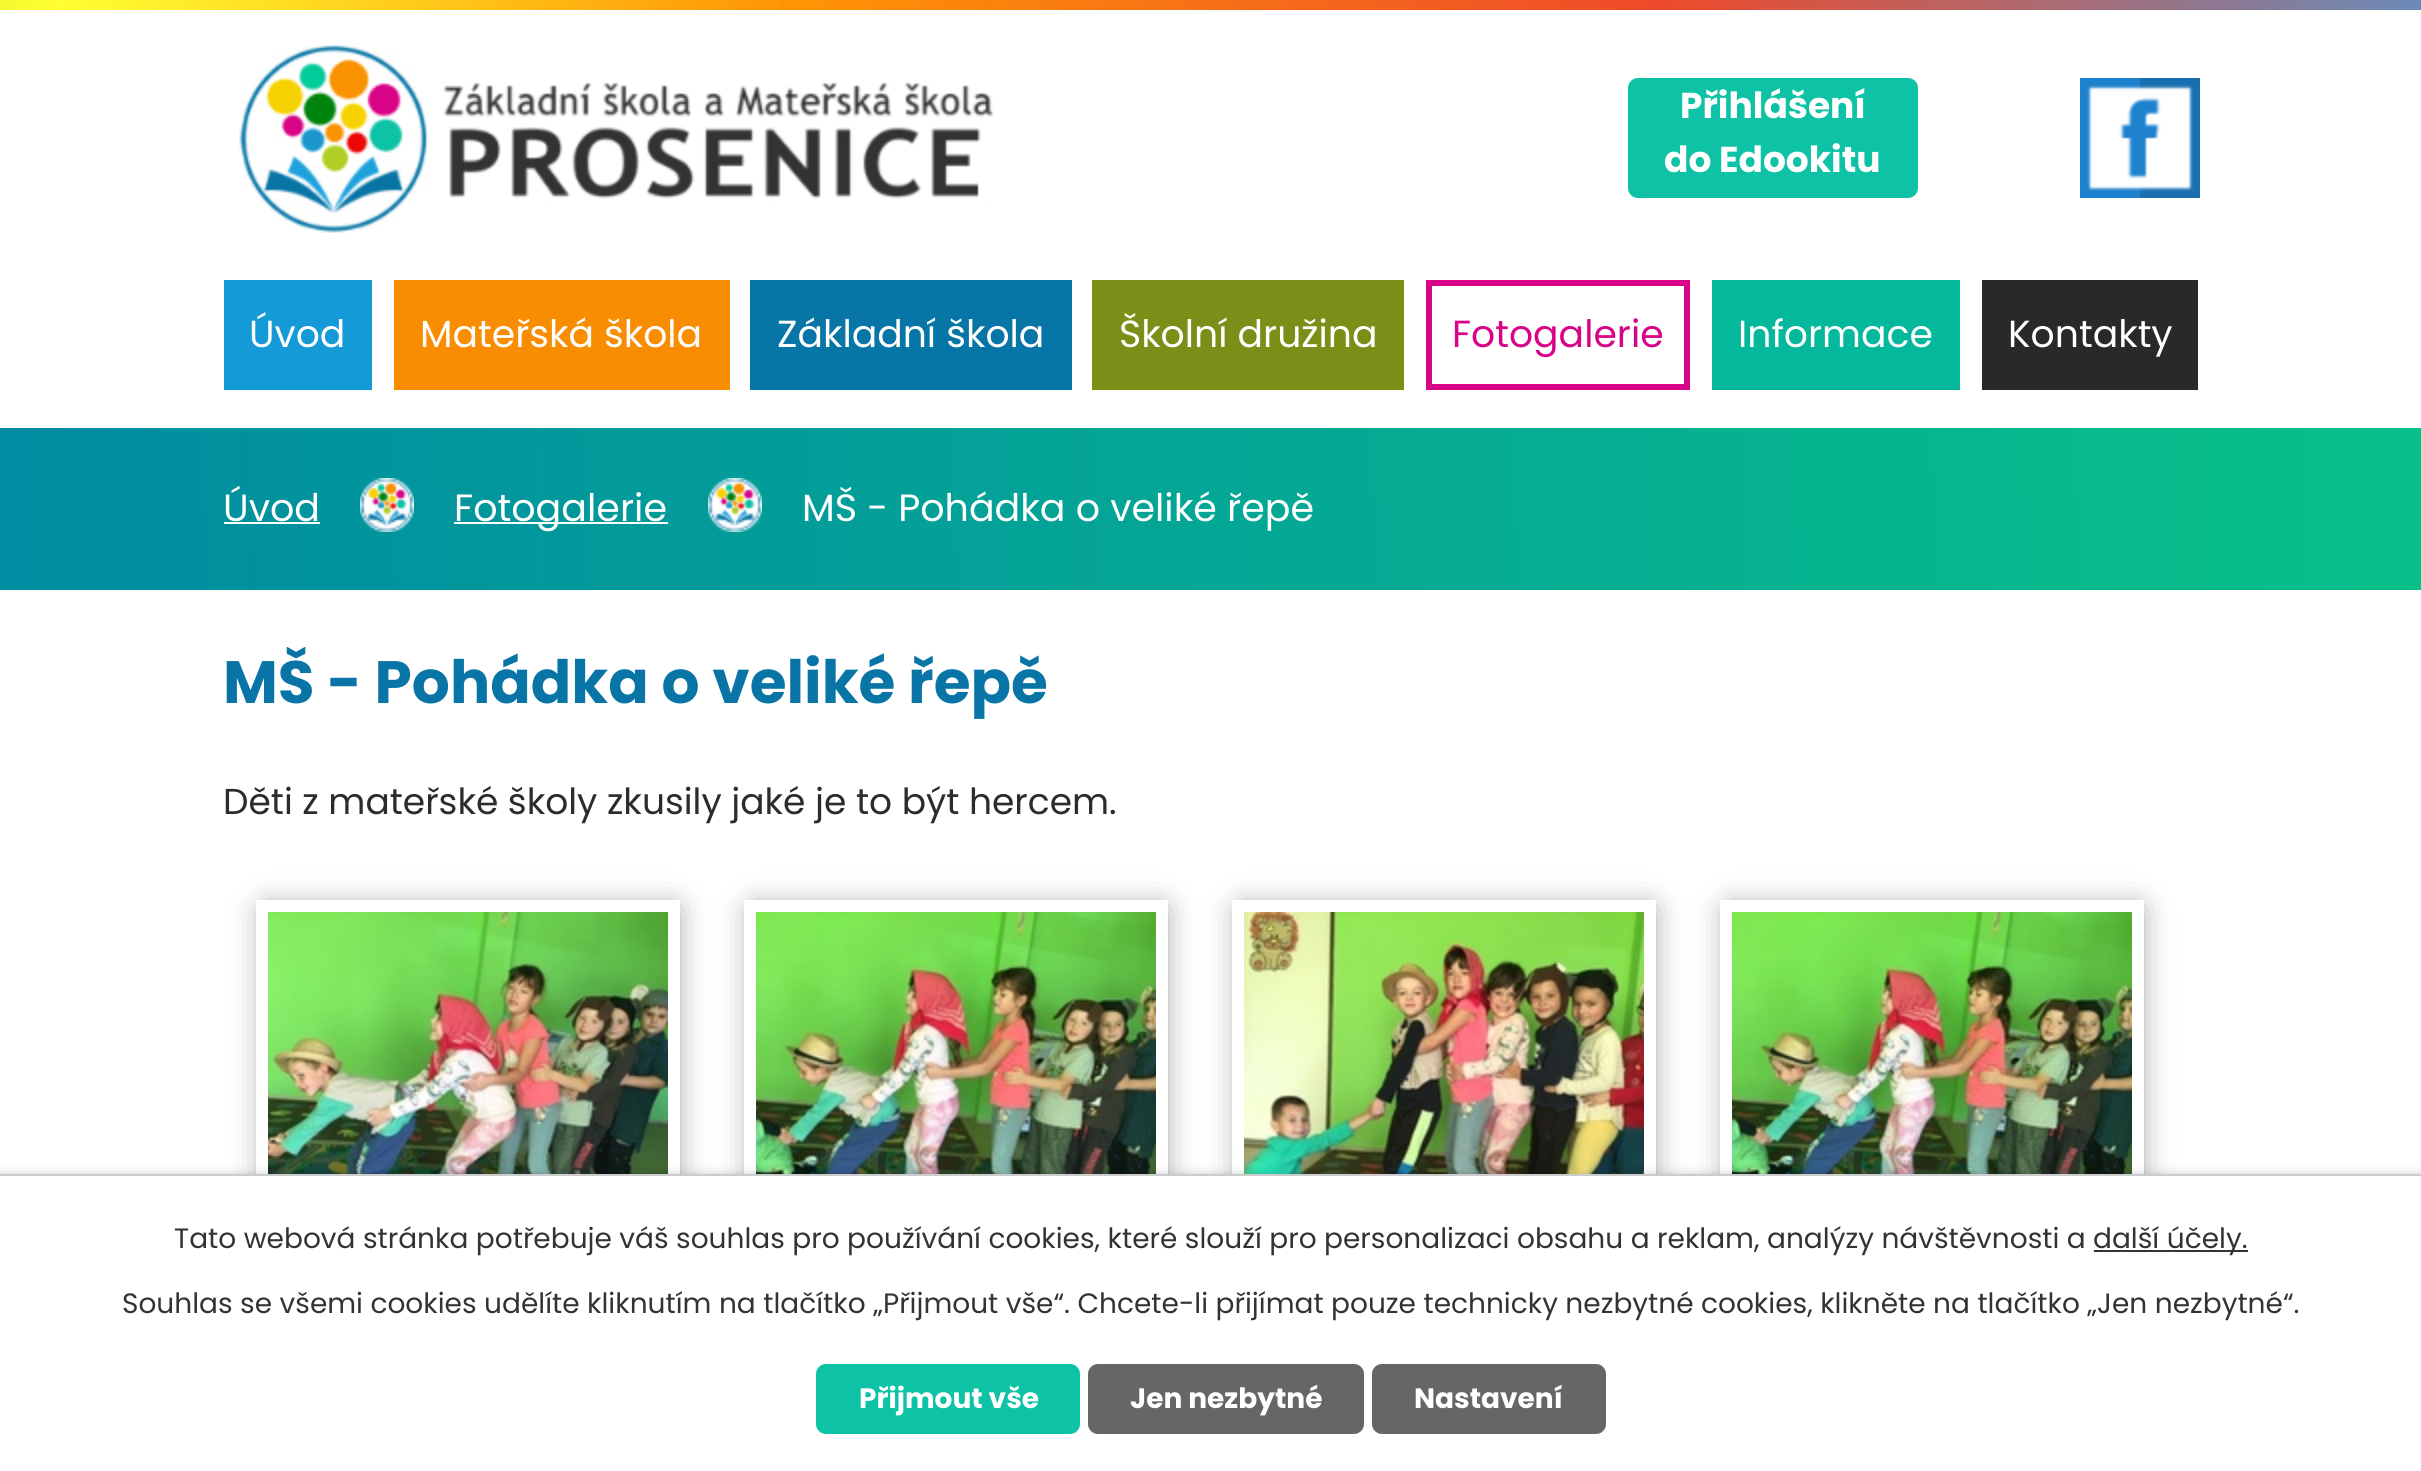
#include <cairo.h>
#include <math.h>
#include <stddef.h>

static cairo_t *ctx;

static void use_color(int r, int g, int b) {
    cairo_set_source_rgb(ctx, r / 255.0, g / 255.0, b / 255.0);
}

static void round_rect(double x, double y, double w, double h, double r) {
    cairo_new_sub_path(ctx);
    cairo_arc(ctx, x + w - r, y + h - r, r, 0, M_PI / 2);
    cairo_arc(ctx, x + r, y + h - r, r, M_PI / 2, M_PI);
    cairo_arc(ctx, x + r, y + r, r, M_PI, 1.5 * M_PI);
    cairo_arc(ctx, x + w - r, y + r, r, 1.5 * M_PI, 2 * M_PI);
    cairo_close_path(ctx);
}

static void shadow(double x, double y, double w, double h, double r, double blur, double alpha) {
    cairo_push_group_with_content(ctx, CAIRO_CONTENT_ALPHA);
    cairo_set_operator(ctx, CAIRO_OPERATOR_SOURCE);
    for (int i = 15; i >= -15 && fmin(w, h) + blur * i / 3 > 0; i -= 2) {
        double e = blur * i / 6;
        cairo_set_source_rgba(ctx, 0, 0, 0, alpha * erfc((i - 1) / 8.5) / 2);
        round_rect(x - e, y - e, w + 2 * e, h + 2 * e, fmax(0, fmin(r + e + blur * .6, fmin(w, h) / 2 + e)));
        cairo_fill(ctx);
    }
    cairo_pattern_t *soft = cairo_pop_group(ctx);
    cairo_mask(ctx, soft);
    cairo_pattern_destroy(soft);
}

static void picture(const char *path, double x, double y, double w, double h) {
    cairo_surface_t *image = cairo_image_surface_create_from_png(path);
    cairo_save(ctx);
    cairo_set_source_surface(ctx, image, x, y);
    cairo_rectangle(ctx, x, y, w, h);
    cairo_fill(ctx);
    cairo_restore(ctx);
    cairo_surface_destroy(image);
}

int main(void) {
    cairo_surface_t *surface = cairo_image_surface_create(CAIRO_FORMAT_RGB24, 2421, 1471);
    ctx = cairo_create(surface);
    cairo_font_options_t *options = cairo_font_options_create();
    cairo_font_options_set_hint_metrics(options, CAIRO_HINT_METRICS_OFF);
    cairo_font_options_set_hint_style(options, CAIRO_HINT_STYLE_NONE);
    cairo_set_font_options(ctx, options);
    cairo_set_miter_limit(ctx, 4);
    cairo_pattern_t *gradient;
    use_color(255, 255, 255);
    cairo_paint(ctx);
    picture("img1.png", 0, 0, 2421, 10);
    picture("img2.png", 239, 45, 755, 188);
    use_color(14, 194, 165);
    round_rect(1628, 78, 290, 120, 10);
    cairo_fill(ctx);
    cairo_select_font_face(ctx, "Poppins", CAIRO_FONT_SLANT_NORMAL, CAIRO_FONT_WEIGHT_BOLD);
    cairo_set_font_size(ctx, 36);
    use_color(255, 255, 255);
    cairo_move_to(ctx, 1680, 118);
    cairo_show_text(ctx, "Přihlášení");
    cairo_move_to(ctx, 1664, 172);
    cairo_show_text(ctx, "do Edookitu");
    picture("img3.png", 2080, 78, 120, 120);
    use_color(20, 154, 214);
    cairo_rectangle(ctx, 224, 280, 148, 110);
    cairo_fill(ctx);
    cairo_select_font_face(ctx, "Poppins", CAIRO_FONT_SLANT_NORMAL, CAIRO_FONT_WEIGHT_NORMAL);
    cairo_set_font_size(ctx, 37.75);
    use_color(255, 255, 255);
    cairo_move_to(ctx, 249, 347);
    cairo_show_text(ctx, "Úvod");
    use_color(248, 141, 1);
    cairo_rectangle(ctx, 394, 280, 336, 110);
    cairo_fill(ctx);
    use_color(255, 255, 255);
    cairo_move_to(ctx, 420, 347);
    cairo_show_text(ctx, "Mateřská škola");
    use_color(7, 117, 165);
    cairo_rectangle(ctx, 750, 280, 322, 110);
    cairo_fill(ctx);
    use_color(255, 255, 255);
    cairo_move_to(ctx, 777, 347);
    cairo_show_text(ctx, "Základní škola");
    use_color(122, 143, 24);
    cairo_rectangle(ctx, 1092, 280, 312, 110);
    cairo_fill(ctx);
    use_color(255, 255, 255);
    cairo_move_to(ctx, 1119, 347);
    cairo_show_text(ctx, "Školní družina");
    cairo_rectangle(ctx, 1429, 283, 258, 104);
    use_color(217, 3, 135);
    cairo_set_line_width(ctx, 6);
    cairo_stroke(ctx);
    cairo_move_to(ctx, 1452, 347);
    cairo_show_text(ctx, "Fotogalerie");
    use_color(3, 184, 155);
    cairo_rectangle(ctx, 1712, 280, 248, 110);
    cairo_fill(ctx);
    use_color(255, 255, 255);
    cairo_move_to(ctx, 1738, 347);
    cairo_show_text(ctx, "Informace");
    use_color(41, 41, 41);
    cairo_rectangle(ctx, 1982, 280, 216, 110);
    cairo_fill(ctx);
    use_color(255, 255, 255);
    cairo_move_to(ctx, 2008, 347);
    cairo_show_text(ctx, "Kontakty");
    gradient = cairo_pattern_create_linear(-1.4, 551, 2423, 467);
    cairo_pattern_add_color_stop_rgba(gradient, 0, 0, 0.549, 0.631, 1);
    cairo_pattern_add_color_stop_rgba(gradient, 1, 0.031, 0.753, 0.537, 1);
    cairo_set_source(ctx, gradient);
    cairo_pattern_destroy(gradient);
    cairo_rectangle(ctx, 0, 428, 2421, 162);
    cairo_fill(ctx);
    cairo_set_font_size(ctx, 38);
    use_color(255, 255, 255);
    cairo_move_to(ctx, 223, 521);
    cairo_show_text(ctx, "Úvod");
    cairo_rectangle(ctx, 224, 522, 96, 2);
    cairo_fill(ctx);
    picture("img4.png", 360, 478, 54, 54);
    cairo_rectangle(ctx, 454, 522, 214, 2);
    cairo_fill(ctx);
    cairo_move_to(ctx, 454, 521);
    cairo_show_text(ctx, "Fotogalerie");
    picture("img5.png", 708, 478, 54, 54);
    cairo_move_to(ctx, 802, 521);
    cairo_show_text(ctx, "MŠ - Pohádka o veliké řepě");
    cairo_select_font_face(ctx, "Poppins", CAIRO_FONT_SLANT_NORMAL, CAIRO_FONT_WEIGHT_BOLD);
    cairo_set_font_size(ctx, 59.75);
    use_color(9, 117, 166);
    cairo_move_to(ctx, 223, 703);
    cairo_show_text(ctx, "MŠ - Pohádka o veliké řepě");
    cairo_select_font_face(ctx, "Poppins", CAIRO_FONT_SLANT_NORMAL, CAIRO_FONT_WEIGHT_NORMAL);
    cairo_set_font_size(ctx, 36);
    use_color(44, 44, 44);
    cairo_move_to(ctx, 223, 814);
    cairo_show_text(ctx, "Děti z mateřské školy zkusily jaké je to být hercem.");
    cairo_save(ctx);
    cairo_set_fill_rule(ctx, CAIRO_FILL_RULE_EVEN_ODD);
    cairo_new_path(ctx);
    cairo_move_to(ctx, 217, 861);
    cairo_line_to(ctx, 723, 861);
    cairo_line_to(ctx, 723, 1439);
    cairo_line_to(ctx, 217, 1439);
    cairo_close_path(ctx);
    cairo_move_to(ctx, 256, 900);
    cairo_line_to(ctx, 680, 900);
    cairo_line_to(ctx, 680, 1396);
    cairo_line_to(ctx, 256, 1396);
    cairo_close_path(ctx);
    cairo_clip(ctx);
    use_color(136, 136, 136);
    shadow(266, 910, 408, 480, 0, 16, 1);
    cairo_restore(ctx);
    picture("img6.png", 268, 912, 400, 262);
    cairo_save(ctx);
    cairo_set_fill_rule(ctx, CAIRO_FILL_RULE_EVEN_ODD);
    cairo_new_path(ctx);
    cairo_move_to(ctx, 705, 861);
    cairo_line_to(ctx, 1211, 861);
    cairo_line_to(ctx, 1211, 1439);
    cairo_line_to(ctx, 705, 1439);
    cairo_close_path(ctx);
    cairo_move_to(ctx, 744, 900);
    cairo_line_to(ctx, 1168, 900);
    cairo_line_to(ctx, 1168, 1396);
    cairo_line_to(ctx, 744, 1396);
    cairo_close_path(ctx);
    cairo_clip(ctx);
    use_color(136, 136, 136);
    shadow(754, 910, 408, 480, 0, 16, 1);
    cairo_restore(ctx);
    picture("img7.png", 756, 912, 400, 262);
    cairo_save(ctx);
    cairo_set_fill_rule(ctx, CAIRO_FILL_RULE_EVEN_ODD);
    cairo_new_path(ctx);
    cairo_move_to(ctx, 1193, 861);
    cairo_line_to(ctx, 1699, 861);
    cairo_line_to(ctx, 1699, 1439);
    cairo_line_to(ctx, 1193, 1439);
    cairo_close_path(ctx);
    cairo_move_to(ctx, 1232, 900);
    cairo_line_to(ctx, 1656, 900);
    cairo_line_to(ctx, 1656, 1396);
    cairo_line_to(ctx, 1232, 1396);
    cairo_close_path(ctx);
    cairo_clip(ctx);
    use_color(136, 136, 136);
    shadow(1242, 910, 408, 480, 0, 16, 1);
    cairo_restore(ctx);
    picture("img8.png", 1244, 912, 400, 262);
    cairo_save(ctx);
    cairo_set_fill_rule(ctx, CAIRO_FILL_RULE_EVEN_ODD);
    cairo_new_path(ctx);
    cairo_move_to(ctx, 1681, 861);
    cairo_line_to(ctx, 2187, 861);
    cairo_line_to(ctx, 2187, 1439);
    cairo_line_to(ctx, 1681, 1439);
    cairo_close_path(ctx);
    cairo_move_to(ctx, 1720, 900);
    cairo_line_to(ctx, 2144, 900);
    cairo_line_to(ctx, 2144, 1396);
    cairo_line_to(ctx, 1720, 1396);
    cairo_close_path(ctx);
    cairo_clip(ctx);
    use_color(136, 136, 136);
    shadow(1730, 910, 408, 480, 0, 16, 1);
    cairo_restore(ctx);
    picture("img9.png", 1732, 912, 400, 262);
    use_color(0, 0, 0);
    shadow(0, 1174, 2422, 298, 0, 5, 0.2);
    use_color(255, 255, 255);
    cairo_rectangle(ctx, 0, 1176, 2421, 295);
    cairo_fill(ctx);
    use_color(204, 204, 204);
    cairo_rectangle(ctx, 0, 1174, 2421, 2);
    cairo_fill(ctx);
    cairo_set_font_size(ctx, 28);
    use_color(51, 51, 51);
    cairo_move_to(ctx, 174, 1248);
    cairo_show_text(ctx, "Tato webová stránka potřebuje váš souhlas pro používání cookies, které slouží pro personalizaci obsahu a reklam, analýzy návštěvnosti a");
    cairo_rectangle(ctx, 2094, 1250, 154, 2);
    cairo_fill(ctx);
    cairo_move_to(ctx, 2093, 1248);
    cairo_show_text(ctx, "další účely.");
    cairo_move_to(ctx, 122, 1313);
    cairo_show_text(ctx, "Souhlas se všemi cookies udělíte kliknutím na tlačítko „Přijmout vše“. Chcete-li přijímat pouze technicky nezbytné cookies, klikněte na tlačítko „Jen nezbytné“.");
    use_color(14, 194, 165);
    round_rect(816, 1364, 264, 70, 10);
    cairo_fill(ctx);
    cairo_select_font_face(ctx, "Poppins", CAIRO_FONT_SLANT_NORMAL, CAIRO_FONT_WEIGHT_BOLD);
    use_color(255, 255, 255);
    cairo_move_to(ctx, 859, 1408);
    cairo_show_text(ctx, "Přijmout vše");
    use_color(102, 102, 102);
    round_rect(1088, 1364, 276, 70, 10);
    cairo_fill(ctx);
    use_color(255, 255, 255);
    cairo_move_to(ctx, 1130, 1408);
    cairo_show_text(ctx, "Jen nezbytné");
    use_color(102, 102, 102);
    round_rect(1372, 1364, 234, 70, 10);
    cairo_fill(ctx);
    use_color(255, 255, 255);
    cairo_move_to(ctx, 1414, 1408);
    cairo_show_text(ctx, "Nastavení");
    cairo_surface_write_to_png(surface, "result.png");
    cairo_font_options_destroy(options);
    cairo_destroy(ctx);
    cairo_surface_destroy(surface);
    return 0;
}
